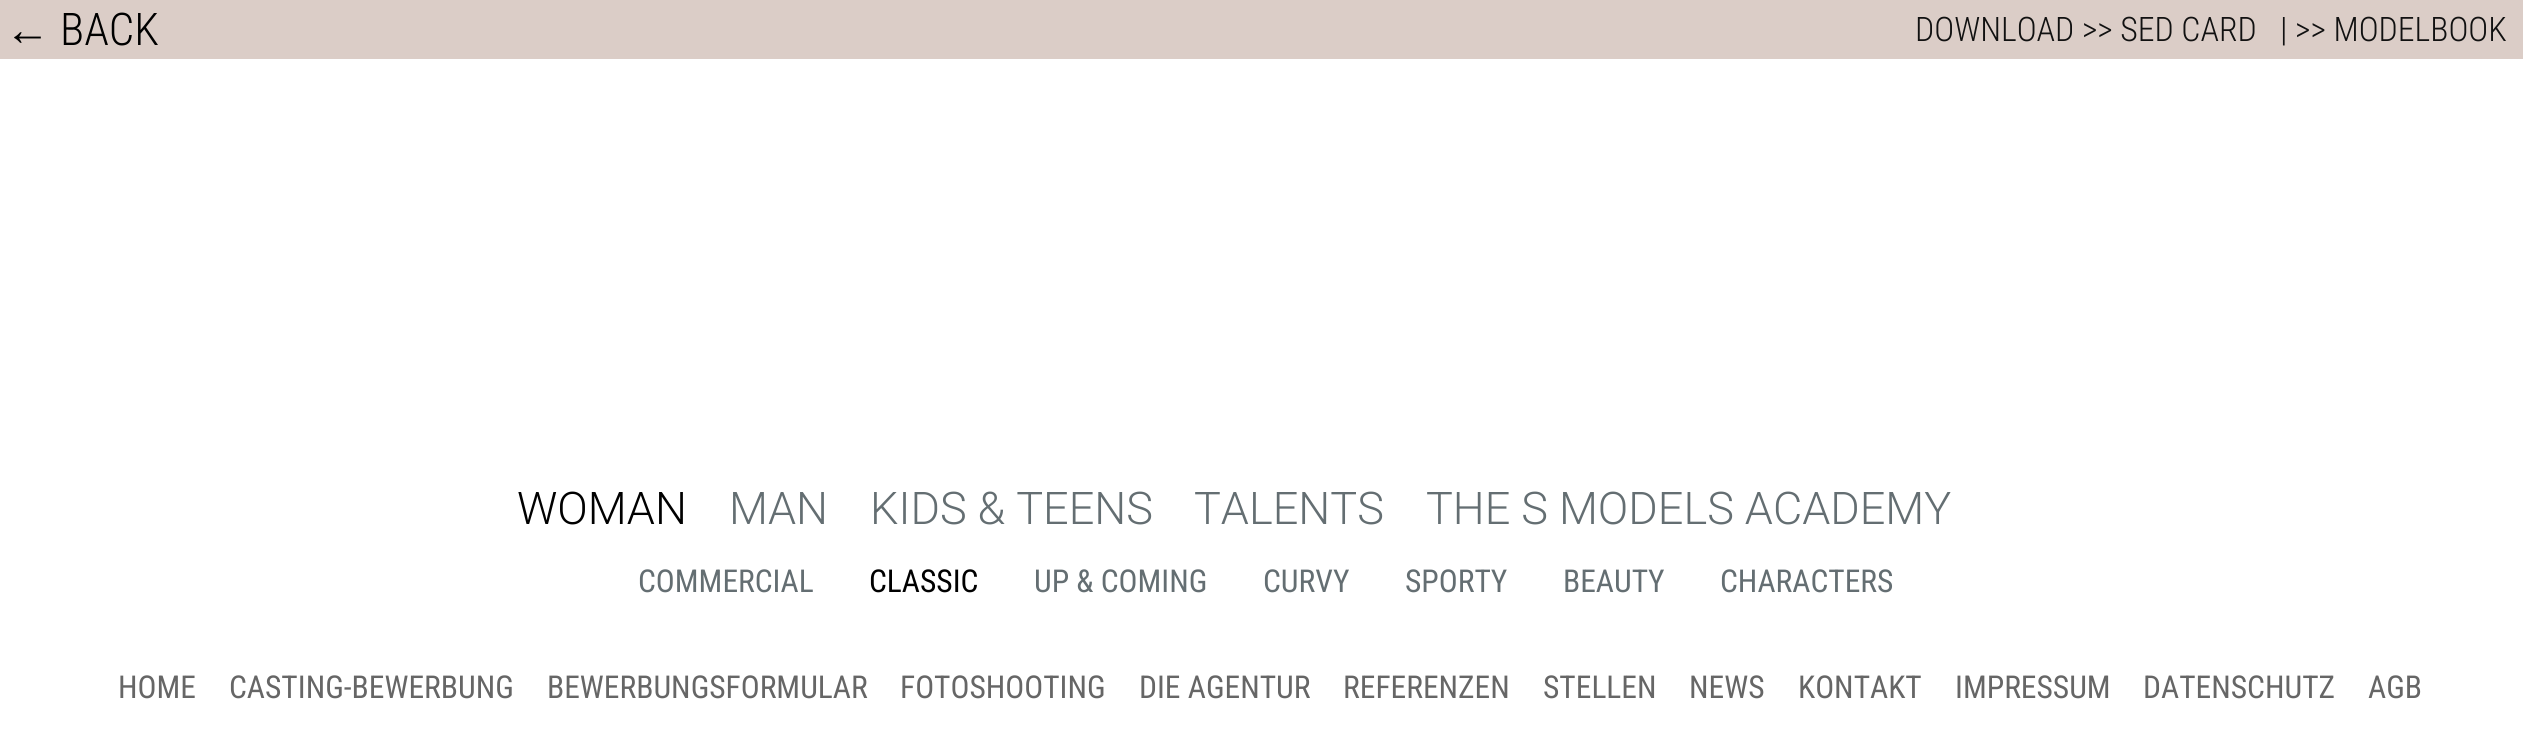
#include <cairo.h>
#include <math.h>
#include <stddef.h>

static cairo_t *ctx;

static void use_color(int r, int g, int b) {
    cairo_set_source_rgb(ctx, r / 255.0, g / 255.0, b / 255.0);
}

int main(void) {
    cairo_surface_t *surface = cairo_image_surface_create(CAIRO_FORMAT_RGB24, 2523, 749);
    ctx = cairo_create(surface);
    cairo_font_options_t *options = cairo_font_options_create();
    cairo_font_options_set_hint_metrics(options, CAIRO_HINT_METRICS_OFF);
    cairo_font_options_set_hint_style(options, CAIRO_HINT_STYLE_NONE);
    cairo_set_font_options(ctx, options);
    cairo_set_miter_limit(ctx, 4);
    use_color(255, 255, 255);
    cairo_paint(ctx);
    use_color(219, 205, 199);
    cairo_rectangle(ctx, 0, 0, 2523, 59);
    cairo_fill(ctx);
    cairo_select_font_face(ctx, "Liberation Sans", CAIRO_FONT_SLANT_NORMAL, CAIRO_FONT_WEIGHT_NORMAL);
    cairo_set_font_size(ctx, 45);
    use_color(0, 0, 0);
    cairo_move_to(ctx, 5, 45);
    cairo_show_text(ctx, "←");
    cairo_select_font_face(ctx, "Roboto Condensed Light", CAIRO_FONT_SLANT_NORMAL, CAIRO_FONT_WEIGHT_NORMAL);
    cairo_move_to(ctx, 60, 45);
    cairo_show_text(ctx, "BACK");
    cairo_set_font_size(ctx, 33.75);
    use_color(17, 17, 17);
    cairo_move_to(ctx, 1915, 41);
    cairo_show_text(ctx, "DOWNLOAD >> SED CARD");
    cairo_move_to(ctx, 2280, 41);
    cairo_show_text(ctx, "| >> MODELBOOK");
    cairo_select_font_face(ctx, "Roboto Light", CAIRO_FONT_SLANT_NORMAL, CAIRO_FONT_WEIGHT_NORMAL);
    cairo_set_font_size(ctx, 45);
    use_color(0, 0, 0);
    cairo_move_to(ctx, 517, 524);
    cairo_show_text(ctx, "WOMAN");
    cairo_select_font_face(ctx, "Roboto Condensed", CAIRO_FONT_SLANT_NORMAL, CAIRO_FONT_WEIGHT_NORMAL);
    cairo_set_font_size(ctx, 31.5);
    use_color(100, 110, 114);
    cairo_move_to(ctx, 638, 592);
    cairo_show_text(ctx, "COMMERCIAL");
    use_color(0, 0, 0);
    cairo_move_to(ctx, 869, 592);
    cairo_show_text(ctx, "CLASSIC");
    use_color(100, 110, 114);
    cairo_move_to(ctx, 1034, 592);
    cairo_show_text(ctx, "UP & COMING");
    cairo_move_to(ctx, 1263, 592);
    cairo_show_text(ctx, "CURVY");
    cairo_move_to(ctx, 1405, 592);
    cairo_show_text(ctx, "SPORTY");
    cairo_move_to(ctx, 1563, 592);
    cairo_show_text(ctx, "BEAUTY");
    cairo_move_to(ctx, 1720, 592);
    cairo_show_text(ctx, "CHARACTERS");
    cairo_select_font_face(ctx, "Roboto Light", CAIRO_FONT_SLANT_NORMAL, CAIRO_FONT_WEIGHT_NORMAL);
    cairo_set_font_size(ctx, 45);
    cairo_move_to(ctx, 729, 524);
    cairo_show_text(ctx, "MAN");
    cairo_move_to(ctx, 870, 524);
    cairo_show_text(ctx, "KIDS & TEENS");
    cairo_move_to(ctx, 1194, 524);
    cairo_show_text(ctx, "TALENTS");
    cairo_move_to(ctx, 1426, 524);
    cairo_show_text(ctx, "THE S MODELS ACADEMY");
    cairo_select_font_face(ctx, "Roboto Condensed", CAIRO_FONT_SLANT_NORMAL, CAIRO_FONT_WEIGHT_NORMAL);
    cairo_set_font_size(ctx, 31.5);
    use_color(102, 102, 102);
    cairo_move_to(ctx, 118, 698);
    cairo_show_text(ctx, "HOME");
    cairo_move_to(ctx, 229, 698);
    cairo_show_text(ctx, "CASTING-BEWERBUNG");
    cairo_move_to(ctx, 547, 698);
    cairo_show_text(ctx, "BEWERBUNGSFORMULAR");
    cairo_move_to(ctx, 900, 698);
    cairo_show_text(ctx, "FOTOSHOOTING");
    cairo_move_to(ctx, 1139, 698);
    cairo_show_text(ctx, "DIE AGENTUR");
    cairo_move_to(ctx, 1343, 698);
    cairo_show_text(ctx, "REFERENZEN");
    cairo_move_to(ctx, 1543, 698);
    cairo_show_text(ctx, "STELLEN");
    cairo_move_to(ctx, 1689, 698);
    cairo_show_text(ctx, "NEWS");
    cairo_move_to(ctx, 1798, 698);
    cairo_show_text(ctx, "KONTAKT");
    cairo_move_to(ctx, 1955, 698);
    cairo_show_text(ctx, "IMPRESSUM");
    cairo_move_to(ctx, 2143, 698);
    cairo_show_text(ctx, "DATENSCHUTZ");
    cairo_move_to(ctx, 2368, 698);
    cairo_show_text(ctx, "AGB");
    cairo_surface_write_to_png(surface, "result.png");
    cairo_font_options_destroy(options);
    cairo_destroy(ctx);
    cairo_surface_destroy(surface);
    return 0;
}
